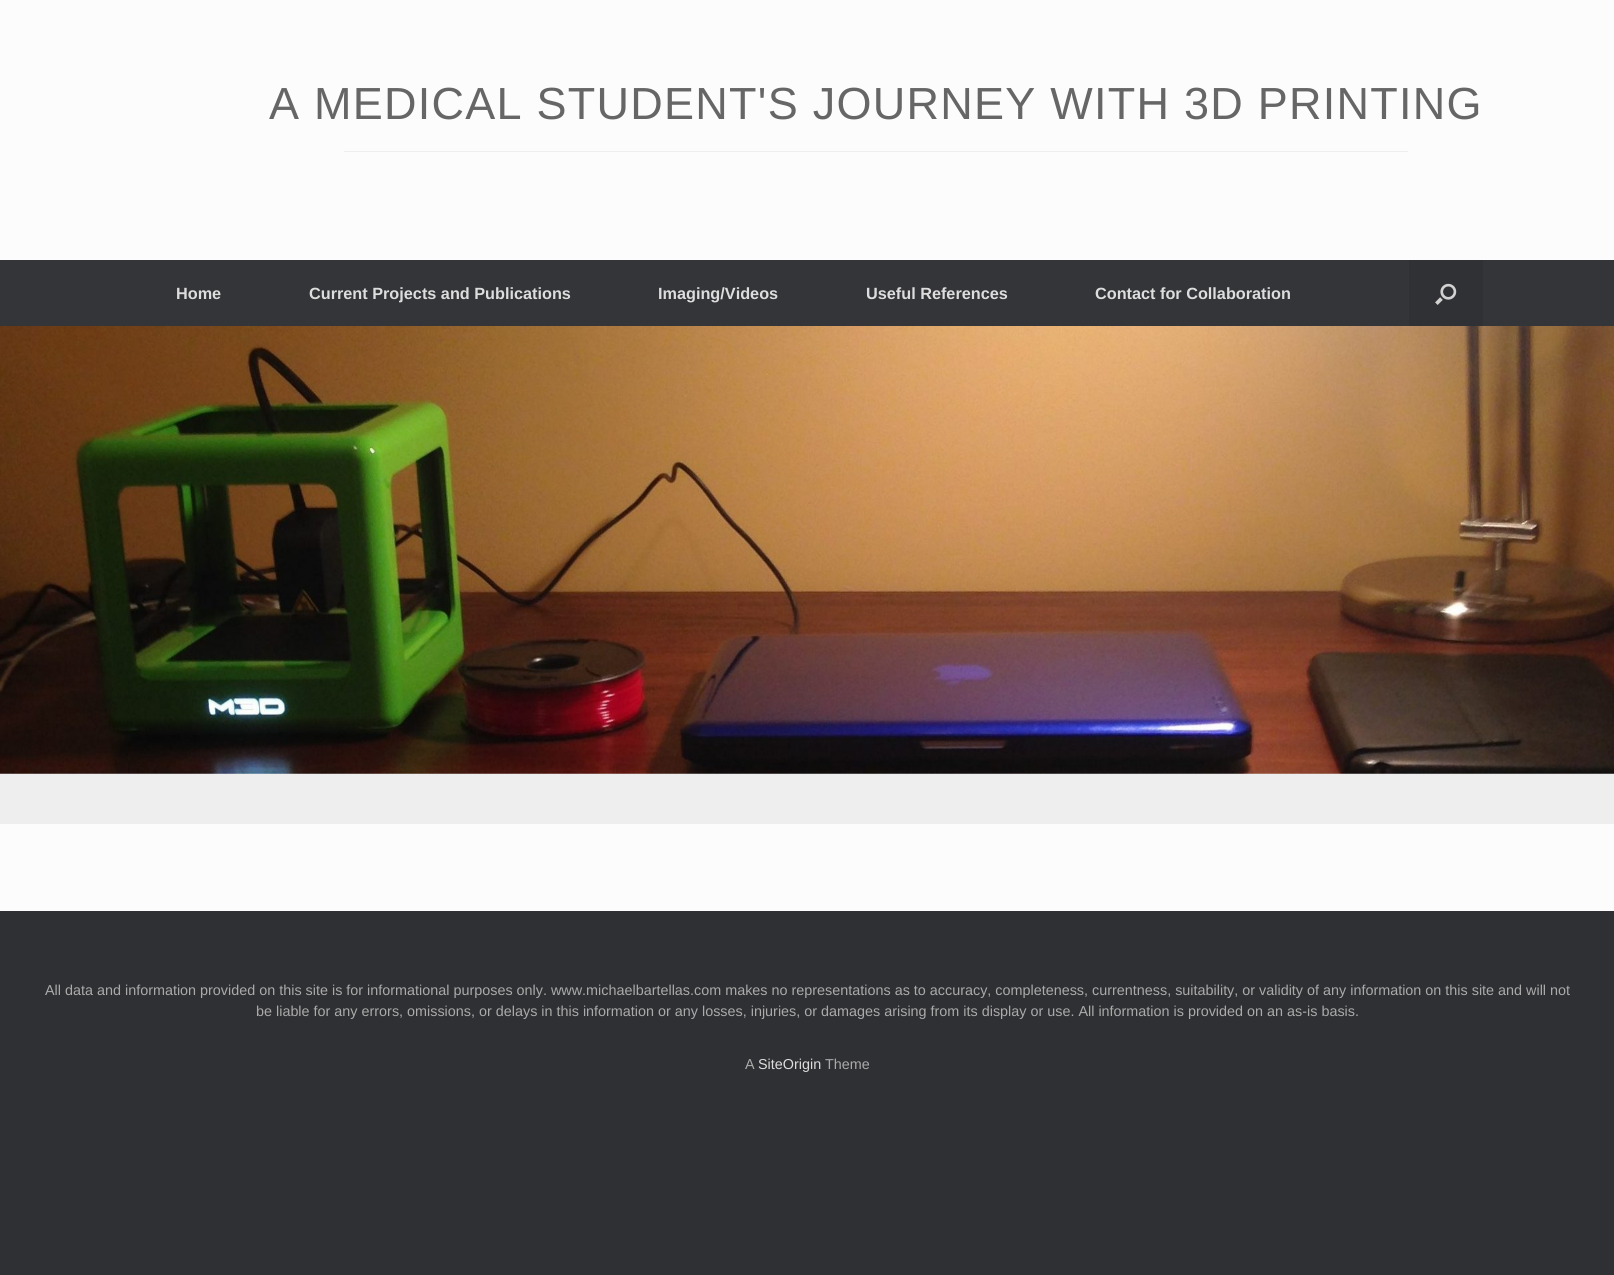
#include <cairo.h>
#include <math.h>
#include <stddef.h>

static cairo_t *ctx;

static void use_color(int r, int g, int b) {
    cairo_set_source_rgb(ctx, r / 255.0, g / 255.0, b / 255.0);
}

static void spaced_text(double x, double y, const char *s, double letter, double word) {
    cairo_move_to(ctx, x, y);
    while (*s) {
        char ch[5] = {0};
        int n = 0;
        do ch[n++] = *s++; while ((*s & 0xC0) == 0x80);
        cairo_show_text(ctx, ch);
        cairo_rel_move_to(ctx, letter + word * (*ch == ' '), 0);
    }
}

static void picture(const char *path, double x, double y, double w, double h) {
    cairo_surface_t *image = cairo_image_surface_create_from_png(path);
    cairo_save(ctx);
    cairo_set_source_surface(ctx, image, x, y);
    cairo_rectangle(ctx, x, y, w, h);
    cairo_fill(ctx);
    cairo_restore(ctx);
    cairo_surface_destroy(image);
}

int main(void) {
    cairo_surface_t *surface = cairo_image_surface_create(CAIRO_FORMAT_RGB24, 1614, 1275);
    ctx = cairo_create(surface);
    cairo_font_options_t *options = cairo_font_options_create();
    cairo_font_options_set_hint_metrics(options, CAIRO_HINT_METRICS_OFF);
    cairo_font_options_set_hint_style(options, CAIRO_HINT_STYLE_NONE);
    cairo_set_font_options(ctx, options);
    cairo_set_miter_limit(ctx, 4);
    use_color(47, 48, 51);
    cairo_paint(ctx);
    use_color(252, 252, 252);
    cairo_rectangle(ctx, 0, 0, 1614, 260);
    cairo_fill(ctx);
    cairo_select_font_face(ctx, "Liberation Sans", CAIRO_FONT_SLANT_NORMAL, CAIRO_FONT_WEIGHT_NORMAL);
    cairo_set_font_size(ctx, 45);
    use_color(102, 102, 102);
    spaced_text(269, 119, "A MEDICAL STUDENT'S JOURNEY WITH 3D PRINTING", 1.25, 0);
    use_color(238, 238, 238);
    cairo_rectangle(ctx, 344, 151, 1064, 1);
    cairo_fill(ctx);
    use_color(52, 53, 56);
    cairo_rectangle(ctx, 0, 260, 1614, 66);
    cairo_fill(ctx);
    cairo_select_font_face(ctx, "Liberation Sans", CAIRO_FONT_SLANT_NORMAL, CAIRO_FONT_WEIGHT_BOLD);
    cairo_set_font_size(ctx, 16.25);
    use_color(221, 221, 221);
    cairo_move_to(ctx, 176, 299);
    cairo_show_text(ctx, "Home");
    cairo_move_to(ctx, 309, 299);
    cairo_show_text(ctx, "Current Projects and Publications");
    cairo_move_to(ctx, 658, 299);
    cairo_show_text(ctx, "Imaging/Videos");
    cairo_move_to(ctx, 866, 299);
    cairo_show_text(ctx, "Useful References");
    cairo_move_to(ctx, 1095, 299);
    cairo_show_text(ctx, "Contact for Collaboration");
    use_color(48, 49, 52);
    cairo_rectangle(ctx, 1409, 260, 74, 66);
    cairo_fill(ctx);
    picture("img1.png", 1435, 283, 22, 22);
    use_color(238, 238, 238);
    cairo_rectangle(ctx, 0, 773, 1614, 51);
    cairo_fill(ctx);
    picture("img2.png", 0, 326, 1614, 448);
    use_color(252, 252, 252);
    cairo_rectangle(ctx, 0, 824, 1614, 87);
    cairo_fill(ctx);
    cairo_select_font_face(ctx, "Liberation Sans", CAIRO_FONT_SLANT_NORMAL, CAIRO_FONT_WEIGHT_NORMAL);
    cairo_set_font_size(ctx, 14.38);
    use_color(170, 170, 170);
    cairo_move_to(ctx, 45, 995);
    cairo_show_text(ctx, "All data and information provided on this site is for informational purposes only. www.michaelbartellas.com makes no representations as to accuracy, completeness, currentness, suitability, or validity of any information on this site and will not");
    cairo_move_to(ctx, 256, 1016);
    cairo_show_text(ctx, "be liable for any errors, omissions, or delays in this information or any losses, injuries, or damages arising from its display or use. All information is provided on an as-is basis.");
    cairo_move_to(ctx, 745, 1069);
    cairo_show_text(ctx, "A");
    use_color(221, 221, 221);
    cairo_move_to(ctx, 758, 1069);
    cairo_show_text(ctx, "SiteOrigin");
    use_color(170, 170, 170);
    cairo_move_to(ctx, 825, 1069);
    cairo_show_text(ctx, "Theme");
    cairo_surface_write_to_png(surface, "result.png");
    cairo_font_options_destroy(options);
    cairo_destroy(ctx);
    cairo_surface_destroy(surface);
    return 0;
}
